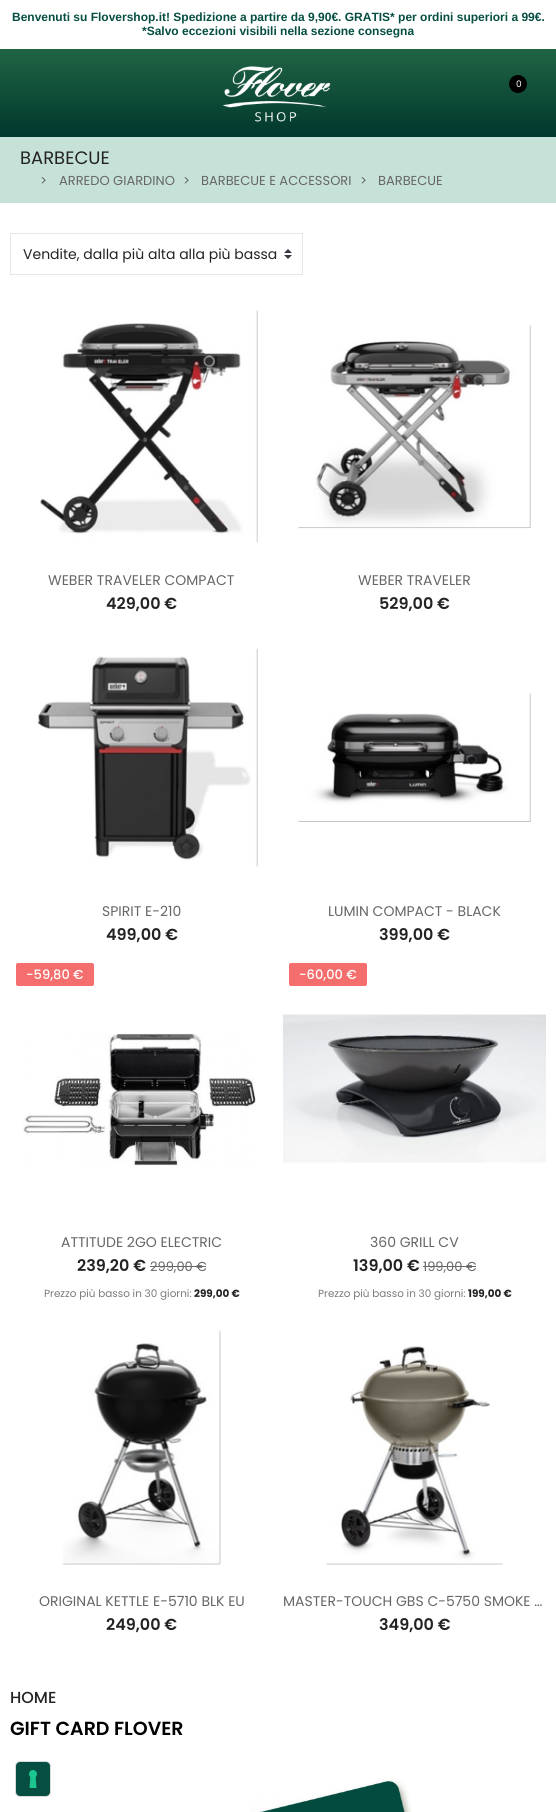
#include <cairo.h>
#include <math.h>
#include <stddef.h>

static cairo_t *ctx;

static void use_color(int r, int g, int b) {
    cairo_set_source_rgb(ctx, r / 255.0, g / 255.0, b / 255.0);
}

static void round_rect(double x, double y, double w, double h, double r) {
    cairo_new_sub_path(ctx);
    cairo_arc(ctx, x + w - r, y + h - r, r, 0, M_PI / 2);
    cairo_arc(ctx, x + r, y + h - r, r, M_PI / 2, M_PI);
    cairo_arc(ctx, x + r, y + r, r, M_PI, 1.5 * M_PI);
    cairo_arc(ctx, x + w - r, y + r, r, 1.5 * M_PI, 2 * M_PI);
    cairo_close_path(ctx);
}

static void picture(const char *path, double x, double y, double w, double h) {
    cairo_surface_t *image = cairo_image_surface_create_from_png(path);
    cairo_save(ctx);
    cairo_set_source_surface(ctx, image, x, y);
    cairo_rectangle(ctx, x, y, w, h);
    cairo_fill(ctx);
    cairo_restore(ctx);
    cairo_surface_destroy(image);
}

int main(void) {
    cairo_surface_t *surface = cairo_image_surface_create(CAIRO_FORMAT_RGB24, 556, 1812);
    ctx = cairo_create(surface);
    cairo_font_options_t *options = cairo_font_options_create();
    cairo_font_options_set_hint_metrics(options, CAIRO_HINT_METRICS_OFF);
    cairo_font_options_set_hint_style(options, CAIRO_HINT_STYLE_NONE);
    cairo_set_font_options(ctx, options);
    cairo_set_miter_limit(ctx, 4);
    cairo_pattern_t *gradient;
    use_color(255, 255, 255);
    cairo_paint(ctx);
    cairo_select_font_face(ctx, "Liberation Sans", CAIRO_FONT_SLANT_NORMAL, CAIRO_FONT_WEIGHT_BOLD);
    cairo_set_font_size(ctx, 12);
    use_color(6, 78, 66);
    cairo_move_to(ctx, 12, 21);
    cairo_show_text(ctx, "Benvenuti su Flovershop.it! Spedizione a partire da 9,90€. GRATIS* per ordini superiori a 99€.");
    cairo_move_to(ctx, 142, 35);
    cairo_show_text(ctx, "*Salvo eccezioni visibili nella sezione consegna");
    gradient = cairo_pattern_create_linear(278, 137, 278, 49);
    cairo_pattern_add_color_stop_rgba(gradient, 0, 0, 0.22, 0.176, 1);
    cairo_pattern_add_color_stop_rgba(gradient, 1, 0.129, 0.392, 0.267, 1);
    cairo_set_source(ctx, gradient);
    cairo_pattern_destroy(gradient);
    cairo_rectangle(ctx, 0, 49, 556, 88);
    cairo_fill(ctx);
    picture("img1.png", 222, 65, 109, 57);
    use_color(0, 0, 0);
    cairo_arc(ctx, 518, 84, 9, 0, 2 * M_PI);
    cairo_fill(ctx);
    cairo_select_font_face(ctx, "Poppins", CAIRO_FONT_SLANT_NORMAL, CAIRO_FONT_WEIGHT_NORMAL);
    cairo_set_font_size(ctx, 9);
    use_color(255, 255, 255);
    cairo_move_to(ctx, 516, 87);
    cairo_show_text(ctx, "0");
    use_color(198, 225, 216);
    cairo_rectangle(ctx, 0, 137, 556, 66);
    cairo_fill(ctx);
    cairo_set_font_size(ctx, 18);
    use_color(35, 35, 35);
    cairo_move_to(ctx, 20, 164);
    cairo_show_text(ctx, "BARBECUE");
    cairo_set_font_size(ctx, 13);
    use_color(102, 102, 102);
    cairo_move_to(ctx, 40, 185);
    cairo_show_text(ctx, ">");
    cairo_move_to(ctx, 59, 185);
    cairo_show_text(ctx, "ARREDO GIARDINO");
    cairo_move_to(ctx, 183, 185);
    cairo_show_text(ctx, ">");
    cairo_move_to(ctx, 201, 185);
    cairo_show_text(ctx, "BARBECUE E ACCESSORI");
    cairo_move_to(ctx, 360, 185);
    cairo_show_text(ctx, ">");
    cairo_move_to(ctx, 378, 185);
    cairo_show_text(ctx, "BARBECUE");
    picture("img2.png", 284, 249, 8, 10);
    cairo_rectangle(ctx, 10.5, 233.5, 292, 41);
    use_color(230, 230, 230);
    cairo_set_line_width(ctx, 1);
    cairo_stroke(ctx);
    cairo_set_font_size(ctx, 14);
    use_color(35, 35, 35);
    cairo_move_to(ctx, 23, 259);
    cairo_show_text(ctx, "Vendite, dalla più alta alla più bassa");
    picture("img3.png", 40, 310, 218, 233);
    use_color(102, 102, 102);
    cairo_move_to(ctx, 48, 585);
    cairo_show_text(ctx, "WEBER TRAVELER COMPACT");
    cairo_select_font_face(ctx, "Poppins SemiBold", CAIRO_FONT_SLANT_NORMAL, CAIRO_FONT_WEIGHT_NORMAL);
    cairo_set_font_size(ctx, 16);
    use_color(35, 35, 35);
    cairo_move_to(ctx, 106, 609);
    cairo_show_text(ctx, "429,00 €");
    picture("img4.png", 298, 325, 233, 204);
    cairo_select_font_face(ctx, "Poppins", CAIRO_FONT_SLANT_NORMAL, CAIRO_FONT_WEIGHT_NORMAL);
    cairo_set_font_size(ctx, 14);
    use_color(102, 102, 102);
    cairo_move_to(ctx, 358, 585);
    cairo_show_text(ctx, "WEBER TRAVELER");
    cairo_select_font_face(ctx, "Poppins SemiBold", CAIRO_FONT_SLANT_NORMAL, CAIRO_FONT_WEIGHT_NORMAL);
    cairo_set_font_size(ctx, 16);
    use_color(35, 35, 35);
    cairo_move_to(ctx, 379, 609);
    cairo_show_text(ctx, "529,00 €");
    picture("img5.png", 37, 648, 221, 219);
    cairo_select_font_face(ctx, "Poppins", CAIRO_FONT_SLANT_NORMAL, CAIRO_FONT_WEIGHT_NORMAL);
    cairo_set_font_size(ctx, 14);
    use_color(102, 102, 102);
    cairo_move_to(ctx, 102, 916);
    cairo_show_text(ctx, "SPIRIT E-210");
    cairo_select_font_face(ctx, "Poppins SemiBold", CAIRO_FONT_SLANT_NORMAL, CAIRO_FONT_WEIGHT_NORMAL);
    cairo_set_font_size(ctx, 16);
    use_color(35, 35, 35);
    cairo_move_to(ctx, 106, 940);
    cairo_show_text(ctx, "499,00 €");
    picture("img6.png", 298, 693, 233, 129);
    cairo_select_font_face(ctx, "Poppins", CAIRO_FONT_SLANT_NORMAL, CAIRO_FONT_WEIGHT_NORMAL);
    cairo_set_font_size(ctx, 14);
    use_color(102, 102, 102);
    cairo_move_to(ctx, 328, 916);
    cairo_show_text(ctx, "LUMIN COMPACT - BLACK");
    cairo_select_font_face(ctx, "Poppins SemiBold", CAIRO_FONT_SLANT_NORMAL, CAIRO_FONT_WEIGHT_NORMAL);
    cairo_set_font_size(ctx, 16);
    use_color(35, 35, 35);
    cairo_move_to(ctx, 379, 940);
    cairo_show_text(ctx, "399,00 €");
    use_color(244, 110, 110);
    round_rect(16, 963, 78, 23, 2);
    cairo_fill(ctx);
    cairo_select_font_face(ctx, "Poppins Medium", CAIRO_FONT_SLANT_NORMAL, CAIRO_FONT_WEIGHT_NORMAL);
    cairo_set_font_size(ctx, 13);
    use_color(255, 255, 255);
    cairo_move_to(ctx, 26, 979);
    cairo_show_text(ctx, "-59,80 €");
    picture("img7.png", 23, 1033, 233, 133);
    cairo_select_font_face(ctx, "Poppins", CAIRO_FONT_SLANT_NORMAL, CAIRO_FONT_WEIGHT_NORMAL);
    cairo_set_font_size(ctx, 14);
    use_color(102, 102, 102);
    cairo_move_to(ctx, 61, 1247);
    cairo_show_text(ctx, "ATTITUDE 2GO ELECTRIC");
    cairo_select_font_face(ctx, "Poppins SemiBold", CAIRO_FONT_SLANT_NORMAL, CAIRO_FONT_WEIGHT_NORMAL);
    cairo_set_font_size(ctx, 16);
    use_color(35, 35, 35);
    cairo_move_to(ctx, 77, 1271);
    cairo_show_text(ctx, "239,20 €");
    cairo_select_font_face(ctx, "Poppins", CAIRO_FONT_SLANT_NORMAL, CAIRO_FONT_WEIGHT_NORMAL);
    cairo_set_font_size(ctx, 13);
    use_color(102, 102, 102);
    cairo_move_to(ctx, 150, 1271);
    cairo_show_text(ctx, "299,00 €");
    cairo_rectangle(ctx, 150, 1266, 56, 1);
    cairo_fill(ctx);
    cairo_set_font_size(ctx, 10.4);
    use_color(122, 122, 122);
    cairo_move_to(ctx, 44, 1297);
    cairo_show_text(ctx, "Prezzo più basso in 30 giorni:");
    cairo_select_font_face(ctx, "Poppins", CAIRO_FONT_SLANT_NORMAL, CAIRO_FONT_WEIGHT_BOLD);
    use_color(35, 35, 35);
    cairo_move_to(ctx, 194, 1297);
    cairo_show_text(ctx, "299,00 €");
    use_color(244, 110, 110);
    round_rect(289, 963, 78, 23, 2);
    cairo_fill(ctx);
    cairo_select_font_face(ctx, "Poppins Medium", CAIRO_FONT_SLANT_NORMAL, CAIRO_FONT_WEIGHT_NORMAL);
    cairo_set_font_size(ctx, 13);
    use_color(255, 255, 255);
    cairo_move_to(ctx, 299, 979);
    cairo_show_text(ctx, "-60,00 €");
    picture("img8.png", 283, 1014, 263, 149);
    cairo_select_font_face(ctx, "Poppins", CAIRO_FONT_SLANT_NORMAL, CAIRO_FONT_WEIGHT_NORMAL);
    cairo_set_font_size(ctx, 14);
    use_color(102, 102, 102);
    cairo_move_to(ctx, 370, 1247);
    cairo_show_text(ctx, "360 GRILL CV");
    cairo_select_font_face(ctx, "Poppins SemiBold", CAIRO_FONT_SLANT_NORMAL, CAIRO_FONT_WEIGHT_NORMAL);
    cairo_set_font_size(ctx, 16);
    use_color(35, 35, 35);
    cairo_move_to(ctx, 353, 1271);
    cairo_show_text(ctx, "139,00 €");
    cairo_select_font_face(ctx, "Poppins", CAIRO_FONT_SLANT_NORMAL, CAIRO_FONT_WEIGHT_NORMAL);
    cairo_set_font_size(ctx, 13);
    use_color(102, 102, 102);
    cairo_move_to(ctx, 423, 1271);
    cairo_show_text(ctx, "199,00 €");
    cairo_rectangle(ctx, 423, 1266, 53, 1);
    cairo_fill(ctx);
    cairo_set_font_size(ctx, 10.4);
    use_color(122, 122, 122);
    cairo_move_to(ctx, 318, 1297);
    cairo_show_text(ctx, "Prezzo più basso in 30 giorni:");
    cairo_select_font_face(ctx, "Poppins", CAIRO_FONT_SLANT_NORMAL, CAIRO_FONT_WEIGHT_BOLD);
    use_color(35, 35, 35);
    cairo_move_to(ctx, 468, 1297);
    cairo_show_text(ctx, "199,00 €");
    picture("img9.png", 62, 1330, 159, 235);
    cairo_select_font_face(ctx, "Poppins", CAIRO_FONT_SLANT_NORMAL, CAIRO_FONT_WEIGHT_NORMAL);
    cairo_set_font_size(ctx, 14);
    use_color(102, 102, 102);
    cairo_move_to(ctx, 39, 1606);
    cairo_show_text(ctx, "ORIGINAL KETTLE E-5710 BLK EU");
    cairo_select_font_face(ctx, "Poppins SemiBold", CAIRO_FONT_SLANT_NORMAL, CAIRO_FONT_WEIGHT_NORMAL);
    cairo_set_font_size(ctx, 16);
    use_color(35, 35, 35);
    cairo_move_to(ctx, 106, 1630);
    cairo_show_text(ctx, "249,00 €");
    picture("img10.png", 326, 1346, 177, 219);
    cairo_select_font_face(ctx, "Poppins", CAIRO_FONT_SLANT_NORMAL, CAIRO_FONT_WEIGHT_NORMAL);
    cairo_set_font_size(ctx, 14);
    use_color(102, 102, 102);
    cairo_move_to(ctx, 283, 1606);
    cairo_show_text(ctx, "MASTER-TOUCH GBS C-5750 SMOKE …");
    cairo_select_font_face(ctx, "Poppins SemiBold", CAIRO_FONT_SLANT_NORMAL, CAIRO_FONT_WEIGHT_NORMAL);
    cairo_set_font_size(ctx, 16);
    use_color(35, 35, 35);
    cairo_move_to(ctx, 379, 1630);
    cairo_show_text(ctx, "349,00 €");
    cairo_select_font_face(ctx, "Poppins Medium", CAIRO_FONT_SLANT_NORMAL, CAIRO_FONT_WEIGHT_NORMAL);
    cairo_move_to(ctx, 10, 1703);
    cairo_show_text(ctx, "HOME");
    cairo_select_font_face(ctx, "Poppins SemiBold", CAIRO_FONT_SLANT_NORMAL, CAIRO_FONT_WEIGHT_NORMAL);
    cairo_set_font_size(ctx, 19);
    use_color(0, 0, 0);
    cairo_move_to(ctx, 10, 1735);
    cairo_show_text(ctx, "GIFT CARD FLOVER");
    picture("img11.png", 251, 1778, 161, 34);
    round_rect(15.5, 1761.5, 35, 35, 4.5);
    use_color(217, 217, 217);
    cairo_stroke(ctx);
    use_color(6, 78, 66);
    round_rect(16, 1762, 34, 34, 4);
    cairo_fill(ctx);
    picture("img12.png", 29, 1770, 8, 18);
    cairo_surface_write_to_png(surface, "result.png");
    cairo_font_options_destroy(options);
    cairo_destroy(ctx);
    cairo_surface_destroy(surface);
    return 0;
}
